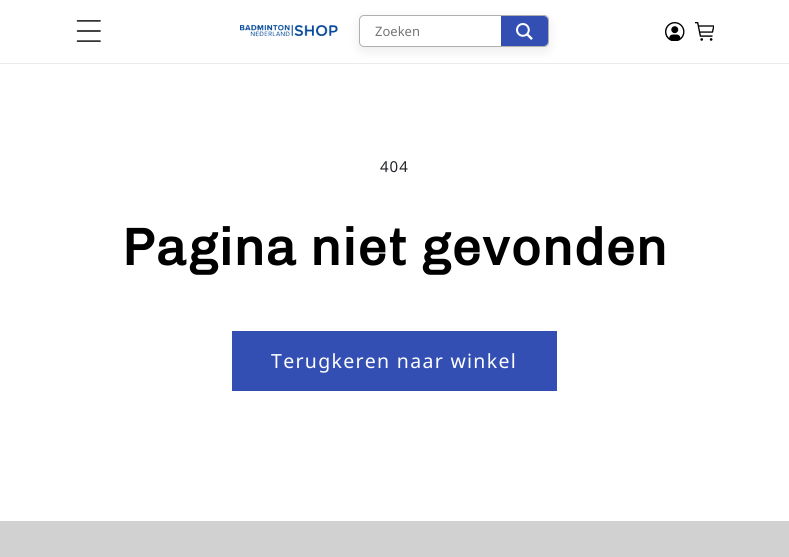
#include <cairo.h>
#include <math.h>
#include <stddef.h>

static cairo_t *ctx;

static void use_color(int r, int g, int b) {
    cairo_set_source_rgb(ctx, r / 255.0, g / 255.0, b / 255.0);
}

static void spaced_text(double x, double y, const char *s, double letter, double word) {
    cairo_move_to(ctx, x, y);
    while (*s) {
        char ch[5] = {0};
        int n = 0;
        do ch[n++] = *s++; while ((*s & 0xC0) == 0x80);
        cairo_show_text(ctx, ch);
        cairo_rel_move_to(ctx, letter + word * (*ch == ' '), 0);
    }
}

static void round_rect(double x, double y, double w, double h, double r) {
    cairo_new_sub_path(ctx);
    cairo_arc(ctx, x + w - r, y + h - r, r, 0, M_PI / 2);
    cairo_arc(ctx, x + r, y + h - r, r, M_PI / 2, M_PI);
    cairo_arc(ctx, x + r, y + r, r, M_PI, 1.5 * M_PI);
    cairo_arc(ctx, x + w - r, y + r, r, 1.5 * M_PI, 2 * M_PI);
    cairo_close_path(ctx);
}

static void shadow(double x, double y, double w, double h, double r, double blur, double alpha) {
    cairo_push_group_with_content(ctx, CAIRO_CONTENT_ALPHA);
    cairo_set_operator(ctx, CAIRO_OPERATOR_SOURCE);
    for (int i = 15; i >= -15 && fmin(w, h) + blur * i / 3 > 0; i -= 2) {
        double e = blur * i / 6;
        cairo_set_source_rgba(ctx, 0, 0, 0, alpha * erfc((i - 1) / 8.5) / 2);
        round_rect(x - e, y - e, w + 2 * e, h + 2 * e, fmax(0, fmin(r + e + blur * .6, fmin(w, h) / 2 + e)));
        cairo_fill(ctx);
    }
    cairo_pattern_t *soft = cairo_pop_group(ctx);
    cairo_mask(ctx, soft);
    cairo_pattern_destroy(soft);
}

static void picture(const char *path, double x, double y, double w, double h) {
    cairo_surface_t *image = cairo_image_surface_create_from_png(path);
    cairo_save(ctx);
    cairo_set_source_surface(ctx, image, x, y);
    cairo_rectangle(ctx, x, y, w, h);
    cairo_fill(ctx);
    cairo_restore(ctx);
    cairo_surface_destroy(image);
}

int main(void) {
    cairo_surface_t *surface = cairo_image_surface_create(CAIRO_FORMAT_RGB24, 789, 557);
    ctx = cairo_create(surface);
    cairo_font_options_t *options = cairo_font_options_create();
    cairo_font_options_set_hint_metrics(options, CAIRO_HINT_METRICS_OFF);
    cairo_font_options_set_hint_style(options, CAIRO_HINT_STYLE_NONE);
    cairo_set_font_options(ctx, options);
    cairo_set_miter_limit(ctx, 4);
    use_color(255, 255, 255);
    cairo_paint(ctx);
    use_color(235, 235, 235);
    cairo_rectangle(ctx, 0, 63, 789, 1);
    cairo_fill(ctx);
    picture("img1.png", 76, 20, 25, 22);
    picture("img2.png", 240, 24, 98, 13);
    use_color(0, 0, 0);
    shadow(359, 19, 190, 32, 5, 6, 0.08);
    use_color(255, 255, 255);
    round_rect(359.5, 15.5, 189, 31, 4.5);
    cairo_fill_preserve(ctx);
    use_color(176, 176, 176);
    cairo_set_line_width(ctx, 1);
    cairo_stroke(ctx);
    cairo_select_font_face(ctx, "Noto Sans", CAIRO_FONT_SLANT_NORMAL, CAIRO_FONT_WEIGHT_NORMAL);
    cairo_set_font_size(ctx, 13);
    use_color(117, 117, 117);
    cairo_move_to(ctx, 375, 36);
    cairo_show_text(ctx, "Zoeken");
    use_color(51, 79, 180);
    cairo_new_path(ctx);
    cairo_move_to(ctx, 501, 16);
    cairo_line_to(ctx, 544, 16);
    cairo_curve_to(ctx, 546, 16, 548, 18, 548, 20);
    cairo_line_to(ctx, 548, 42);
    cairo_curve_to(ctx, 548, 44, 546, 46, 544, 46);
    cairo_line_to(ctx, 501, 46);
    cairo_close_path(ctx);
    cairo_fill(ctx);
    picture("img3.png", 516, 23, 17, 17);
    picture("img4.png", 665, 22, 20, 19);
    picture("img5.png", 695, 22, 19, 19);
    cairo_set_font_size(ctx, 15);
    use_color(33, 37, 41);
    spaced_text(380, 172, "404", 1, 0);
    cairo_select_font_face(ctx, "Chivo", CAIRO_FONT_SLANT_NORMAL, CAIRO_FONT_WEIGHT_BOLD);
    cairo_set_font_size(ctx, 52);
    use_color(0, 0, 0);
    spaced_text(122, 265, "Pagina niet gevonden", 0.9, 0);
    use_color(51, 79, 180);
    cairo_rectangle(ctx, 232, 331, 325, 60);
    cairo_fill(ctx);
    cairo_select_font_face(ctx, "Noto Sans", CAIRO_FONT_SLANT_NORMAL, CAIRO_FONT_WEIGHT_NORMAL);
    cairo_set_font_size(ctx, 19.5);
    use_color(255, 255, 255);
    spaced_text(271, 368, "Terugkeren naar winkel", 1.3, 0);
    use_color(210, 209, 209);
    cairo_rectangle(ctx, 0, 521, 789, 36);
    cairo_fill(ctx);
    cairo_surface_write_to_png(surface, "result.png");
    cairo_font_options_destroy(options);
    cairo_destroy(ctx);
    cairo_surface_destroy(surface);
    return 0;
}
